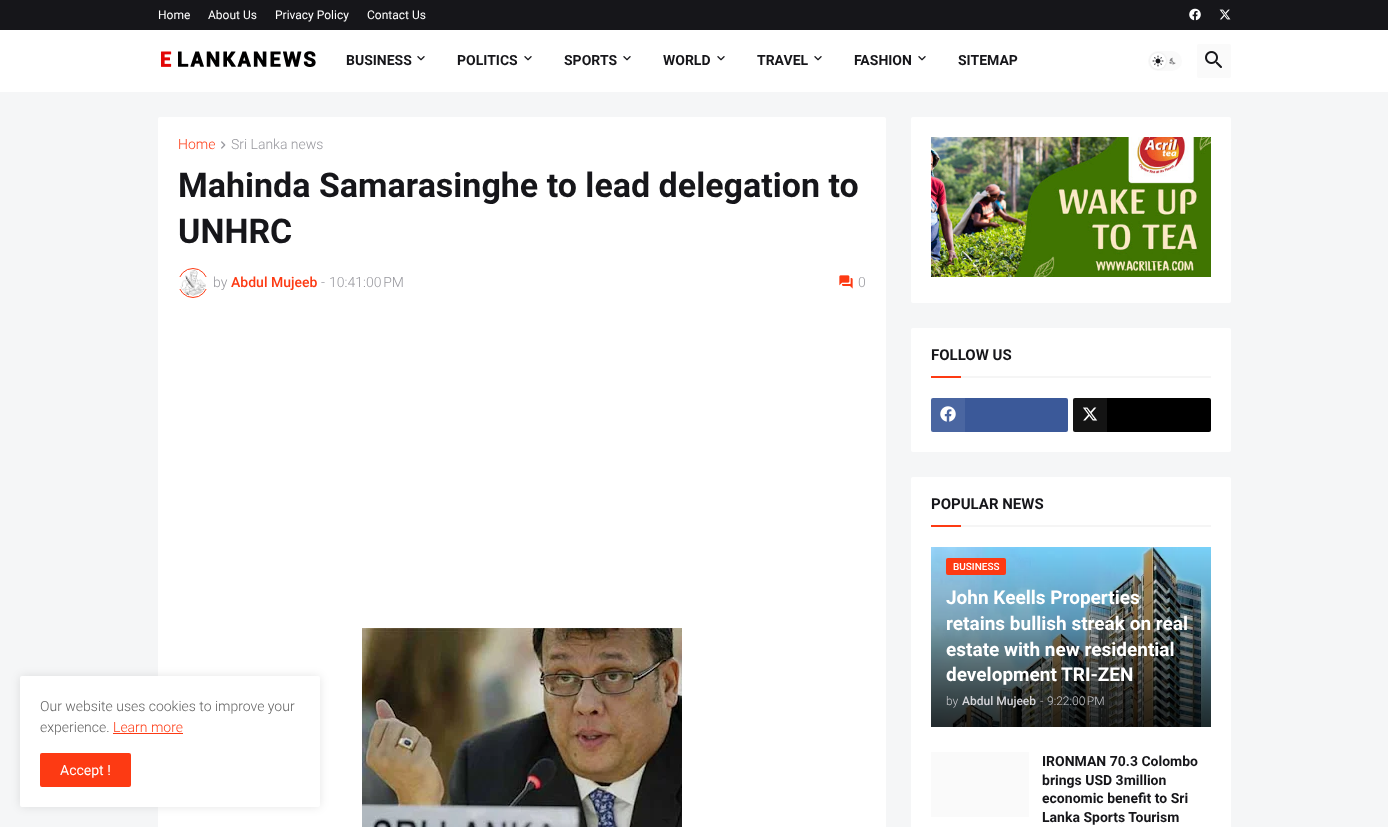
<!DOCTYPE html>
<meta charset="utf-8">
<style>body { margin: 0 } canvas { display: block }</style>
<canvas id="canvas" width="1388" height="827"></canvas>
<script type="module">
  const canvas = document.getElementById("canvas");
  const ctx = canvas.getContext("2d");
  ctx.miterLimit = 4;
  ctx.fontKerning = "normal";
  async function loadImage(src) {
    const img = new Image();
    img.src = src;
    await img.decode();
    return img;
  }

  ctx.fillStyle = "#f5f6f7";
  ctx.fillRect(0, 0, 1388, 827);
  ctx.fillStyle = "#16161a";
  ctx.fillRect(0, 0, 1388, 30);
  ctx.font = "12px Roboto";
  ctx.fillStyle = "#ffffff";
  ctx.fillText("Home", 158, 19);
  ctx.fillText("About Us", 208, 19);
  ctx.fillText("Privacy Policy", 275, 19);
  ctx.fillText("Contact Us", 367, 19);
  ctx.drawImage(await loadImage("img1.png"), 1189, 8, 12, 13);
  ctx.drawImage(await loadImage("img2.png"), 1219, 9, 12, 11);
  ctx.fillRect(0, 30, 1388, 62);
  ctx.drawImage(await loadImage("img3.png"), 161, 51, 155, 16);
  ctx.font = "bold 14px Roboto";
  ctx.fillStyle = "#16161a";
  ctx.fillText("BUSINESS", 346, 65);
  ctx.drawImage(await loadImage("img4.png"), 417, 56, 8, 5);
  ctx.fillText("POLITICS", 457, 65);
  ctx.drawImage(await loadImage("img4.png"), 524, 56, 8, 5);
  ctx.fillText("SPORTS", 564, 65);
  ctx.drawImage(await loadImage("img4.png"), 623, 56, 8, 5);
  ctx.fillText("WORLD", 663, 65);
  ctx.drawImage(await loadImage("img4.png"), 717, 56, 8, 5);
  ctx.fillText("TRAVEL", 757, 65);
  ctx.drawImage(await loadImage("img4.png"), 814, 56, 8, 5);
  ctx.fillText("FASHION", 854, 65);
  ctx.drawImage(await loadImage("img4.png"), 918, 56, 8, 5);
  ctx.fillText("SITEMAP", 958, 65);
  ctx.fillStyle = "#fafafa";
  ctx.beginPath();
  ctx.roundRect(1148, 51, 34, 20, 10);
  ctx.fill();
  ctx.drawImage(await loadImage("img6.png"), 1169, 57, 7, 8);
  ctx.fillStyle = "rgba(0, 0, 0, 0.1)";
  ctx.filter = "blur(1px)";
  ctx.beginPath();
  ctx.roundRect(1150, 53, 16, 16, 8);
  ctx.fill();
  ctx.filter = "none";
  ctx.fillStyle = "#ffffff";
  ctx.beginPath();
  ctx.arc(1158, 61, 8, 0, Math.PI * 2);
  ctx.fill();
  ctx.drawImage(await loadImage("img5.png"), 1152, 55, 12, 12);
  ctx.fillStyle = "#fafafa";
  ctx.beginPath();
  ctx.roundRect(1197, 44, 34, 34, 2);
  ctx.fill();
  ctx.drawImage(await loadImage("img7.png"), 1205, 51, 17, 17);
  ctx.fillStyle = "#ffffff";
  ctx.beginPath();
  ctx.roundRect(158, 117, 728, 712, 2);
  ctx.fill();
  ctx.fillStyle = "rgba(0, 0, 0, 0.1)";
  ctx.filter = "blur(5px)";
  ctx.beginPath();
  ctx.roundRect(20, 676, 300, 131, 2);
  ctx.fill();
  ctx.filter = "none";
  ctx.fillStyle = "#ffffff";
  ctx.beginPath();
  ctx.roundRect(20, 676, 300, 131, 2);
  ctx.fill();
  ctx.font = "300 14px Roboto";
  ctx.fillStyle = "#626262";
  ctx.fillText("Our website uses cookies to improve your", 40, 711);
  ctx.fillText("experience.", 40, 732);
  ctx.fillStyle = "#fd3a13";
  ctx.fillText("Learn more", 113, 732);
  ctx.fillRect(113, 733, 70, 1);
  ctx.beginPath();
  ctx.roundRect(40, 753, 91, 34, 2);
  ctx.fill();
  ctx.font = "14px Roboto";
  ctx.fillStyle = "#ffffff";
  ctx.fillText("Accept !", 60, 775);
  ctx.font = "300 14px Roboto";
  ctx.fillStyle = "#fd3a13";
  ctx.fillText("Home", 178, 149);
  ctx.drawImage(await loadImage("img8.png"), 221, 141, 5, 8);
  ctx.fillStyle = "#97979d";
  ctx.fillText("Sri Lanka news", 231, 149);
  ctx.font = "bold 34px Roboto";
  ctx.fillStyle = "#16161a";
  ctx.fillText("Mahinda Samarasinghe to lead delegation to", 178, 197);
  ctx.fillText("UNHRC", 178, 243);
  ctx.beginPath();
  ctx.arc(193, 283, 14.5, 0, Math.PI * 2);
  ctx.strokeStyle = "#fd3a13";
  ctx.stroke();
  ctx.fillStyle = "#ffffff";
  ctx.fillRect(178, 277, 30, 12);
  ctx.drawImage(await loadImage("img9.png"), 180, 270, 26, 26);
  ctx.font = "300 14px Roboto";
  ctx.fillStyle = "#97979d";
  ctx.fillText("by", 213, 287);
  ctx.font = "500 14px Roboto";
  ctx.fillStyle = "#fd3a13";
  ctx.fillText("Abdul Mujeeb", 231, 287);
  ctx.font = "300 14px Roboto";
  ctx.fillStyle = "#97979d";
  ctx.fillText("-", 321, 287);
  ctx.fillText("10:41:00 PM", 329, 287);
  ctx.drawImage(await loadImage("img10.png"), 839, 275, 14, 14);
  ctx.fillText("0", 858, 287);
  ctx.drawImage(await loadImage("img11.png"), 362, 628, 320, 199);
  ctx.fillStyle = "#ffffff";
  ctx.beginPath();
  ctx.roundRect(911, 117, 320, 186, 2);
  ctx.fill();
  ctx.drawImage(await loadImage("img12.png"), 931, 137, 280, 140);
  ctx.beginPath();
  ctx.roundRect(911, 328, 320, 124, 2);
  ctx.fill();
  ctx.fillStyle = "#f5f5f5";
  ctx.fillRect(961, 376, 250, 2);
  ctx.font = "bold 15px Roboto";
  ctx.fillStyle = "#16161a";
  ctx.fillText("FOLLOW US", 931, 360);
  ctx.fillStyle = "#fd3a13";
  ctx.fillRect(931, 376, 30, 2);
  ctx.fillStyle = "#3b5999";
  ctx.beginPath();
  ctx.roundRect(931, 398, 137, 34, 2);
  ctx.fill();
  ctx.fillStyle = "rgba(255, 255, 255, 0.08)";
  ctx.fillRect(931, 398, 34, 34);
  ctx.drawImage(await loadImage("img13.png"), 940, 406, 16, 16);
  ctx.fillStyle = "#000000";
  ctx.beginPath();
  ctx.roundRect(1073, 398, 138, 34, 2);
  ctx.fill();
  ctx.fillStyle = "rgba(255, 255, 255, 0.08)";
  ctx.fillRect(1073, 398, 34, 34);
  ctx.drawImage(await loadImage("img14.png"), 1083, 407, 15, 14);
  ctx.fillStyle = "#ffffff";
  ctx.beginPath();
  ctx.roundRect(911, 477, 320, 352, 2);
  ctx.fill();
  ctx.fillStyle = "#f5f5f5";
  ctx.fillRect(961, 525, 250, 2);
  ctx.fillStyle = "#16161a";
  ctx.fillText("POPULAR NEWS", 931, 509);
  ctx.fillStyle = "#fd3a13";
  ctx.fillRect(931, 525, 30, 2);
  ctx.drawImage(await loadImage("img15.png"), 931, 547, 280, 180);
  ctx.beginPath();
  ctx.roundRect(946, 558, 60, 17, 2);
  ctx.fill();
  ctx.font = "500 10px Roboto";
  ctx.fillStyle = "#ffffff";
  ctx.fillText("BUSINESS", 953, 570);
  ctx.font = "bold 19px Roboto";
  ctx.fillText("John Keells Properties", 946, 604);
  ctx.fillText("retains bullish streak on real", 946, 630);
  ctx.fillText("estate with new residential", 946, 656);
  ctx.fillText("development TRI-ZEN", 946, 681);
  ctx.font = "300 12px Roboto";
  ctx.fillStyle = "#c5c5ca";
  ctx.fillText("by", 946, 705);
  ctx.font = "500 12px Roboto";
  ctx.fillStyle = "#d5d5da";
  ctx.fillText("Abdul Mujeeb", 962, 705);
  ctx.font = "300 12px Roboto";
  ctx.fillStyle = "#c5c5ca";
  ctx.fillText("-", 1040, 705);
  ctx.fillText("9:22:00 PM", 1047, 705);
  ctx.fillStyle = "#fafafa";
  ctx.fillRect(931, 752, 98, 65);
  ctx.font = "bold 14px Roboto";
  ctx.fillStyle = "#16161a";
  ctx.fillText("IRONMAN 70.3 Colombo", 1042, 766);
  ctx.fillText("brings USD 3million", 1042, 785);
  ctx.fillText("economic benefit to Sri", 1042, 803);
  ctx.fillText("Lanka Sports Tourism", 1042, 822);
</script>
